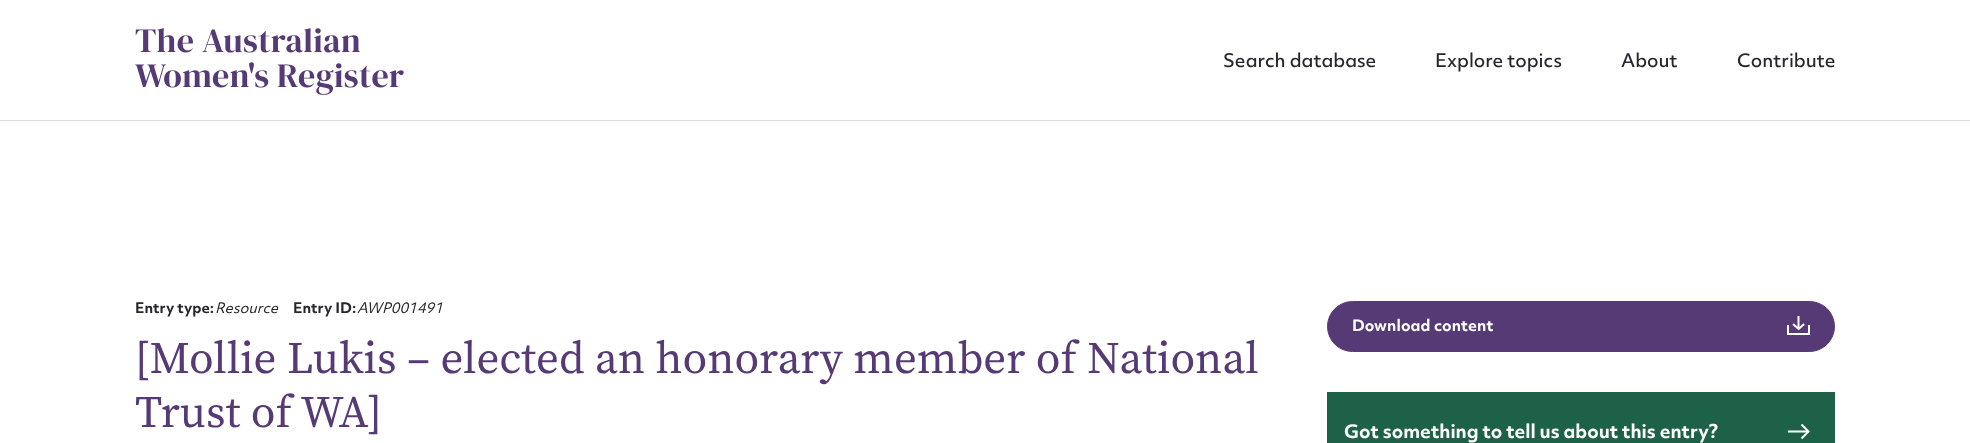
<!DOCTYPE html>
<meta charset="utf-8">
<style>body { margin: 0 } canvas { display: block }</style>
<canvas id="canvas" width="1970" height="443"></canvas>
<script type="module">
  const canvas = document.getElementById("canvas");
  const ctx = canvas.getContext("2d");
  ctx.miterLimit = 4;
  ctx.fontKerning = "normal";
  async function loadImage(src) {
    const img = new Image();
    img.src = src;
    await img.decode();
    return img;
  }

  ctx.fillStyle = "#ffffff";
  ctx.fillRect(0, 0, 1970, 443);
  ctx.fillStyle = "#ddd8e3";
  ctx.fillRect(0, 120, 1970, 1);
  ctx.letterSpacing = "0.3px";
  ctx.font = "34px DM Serif Display";
  ctx.fillStyle = "#553a75";
  ctx.fillText("The Australian", 135, 52);
  ctx.fillText("Women's Register", 135, 87);
  ctx.letterSpacing = "0px";
  ctx.font = "500 18px 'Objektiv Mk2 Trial'";
  ctx.fillStyle = "#2a242e";
  ctx.fillText("Search database", 1223, 67);
  ctx.fillText("Explore topics", 1435, 67);
  ctx.fillText("About", 1621, 67);
  ctx.fillText("Contribute", 1737, 67);
  ctx.font = "bold 14px 'Objektiv Mk2 Trial'";
  ctx.fillText("Entry type:", 135, 313);
  ctx.font = "italic 14px 'Objektiv Mk2 Trial'";
  ctx.fillText("Resource", 215, 313);
  ctx.font = "bold 14px 'Objektiv Mk2 Trial'";
  ctx.fillText("Entry ID:", 293, 313);
  ctx.font = "italic 14px 'Objektiv Mk2 Trial'";
  ctx.fillText("AWP001491", 357, 313);
  ctx.font = "45px Source Serif Pro";
  ctx.fillStyle = "#553a75";
  ctx.fillText("[Mollie Lukis – elected an honorary member of National", 135, 373);
  ctx.fillText("Trust of WA]", 135, 427);
  ctx.beginPath();
  ctx.roundRect(1327.5, 301.5, 507, 50, 25);
  ctx.fill();
  ctx.strokeStyle = "#553a75";
  ctx.stroke();
  ctx.letterSpacing = "0.1px";
  ctx.font = "bold 15px 'Objektiv Mk2 Trial'";
  ctx.fillStyle = "#ffffff";
  ctx.fillText("Download content", 1352, 331);
  ctx.drawImage(await loadImage("img1.png"), 1787, 316, 23, 19);
  ctx.fillStyle = "#1d6248";
  ctx.fillRect(1327, 392, 508, 51);
  ctx.letterSpacing = "0px";
  ctx.font = "bold 18px 'Objektiv Mk2 Trial'";
  ctx.fillStyle = "#ffffff";
  ctx.fillText("Got something to tell us about this entry?", 1344, 438);
  ctx.beginPath();
  ctx.moveTo(1801.5, 424.5);
  ctx.lineTo(1808.5, 431.5);
  ctx.lineTo(1801.5, 438.5);
  ctx.moveTo(1808.5, 431.5);
  ctx.lineTo(1788, 431.5);
  ctx.strokeStyle = "#ffffff";
  ctx.lineWidth = 1.9;
  ctx.stroke();
</script>
